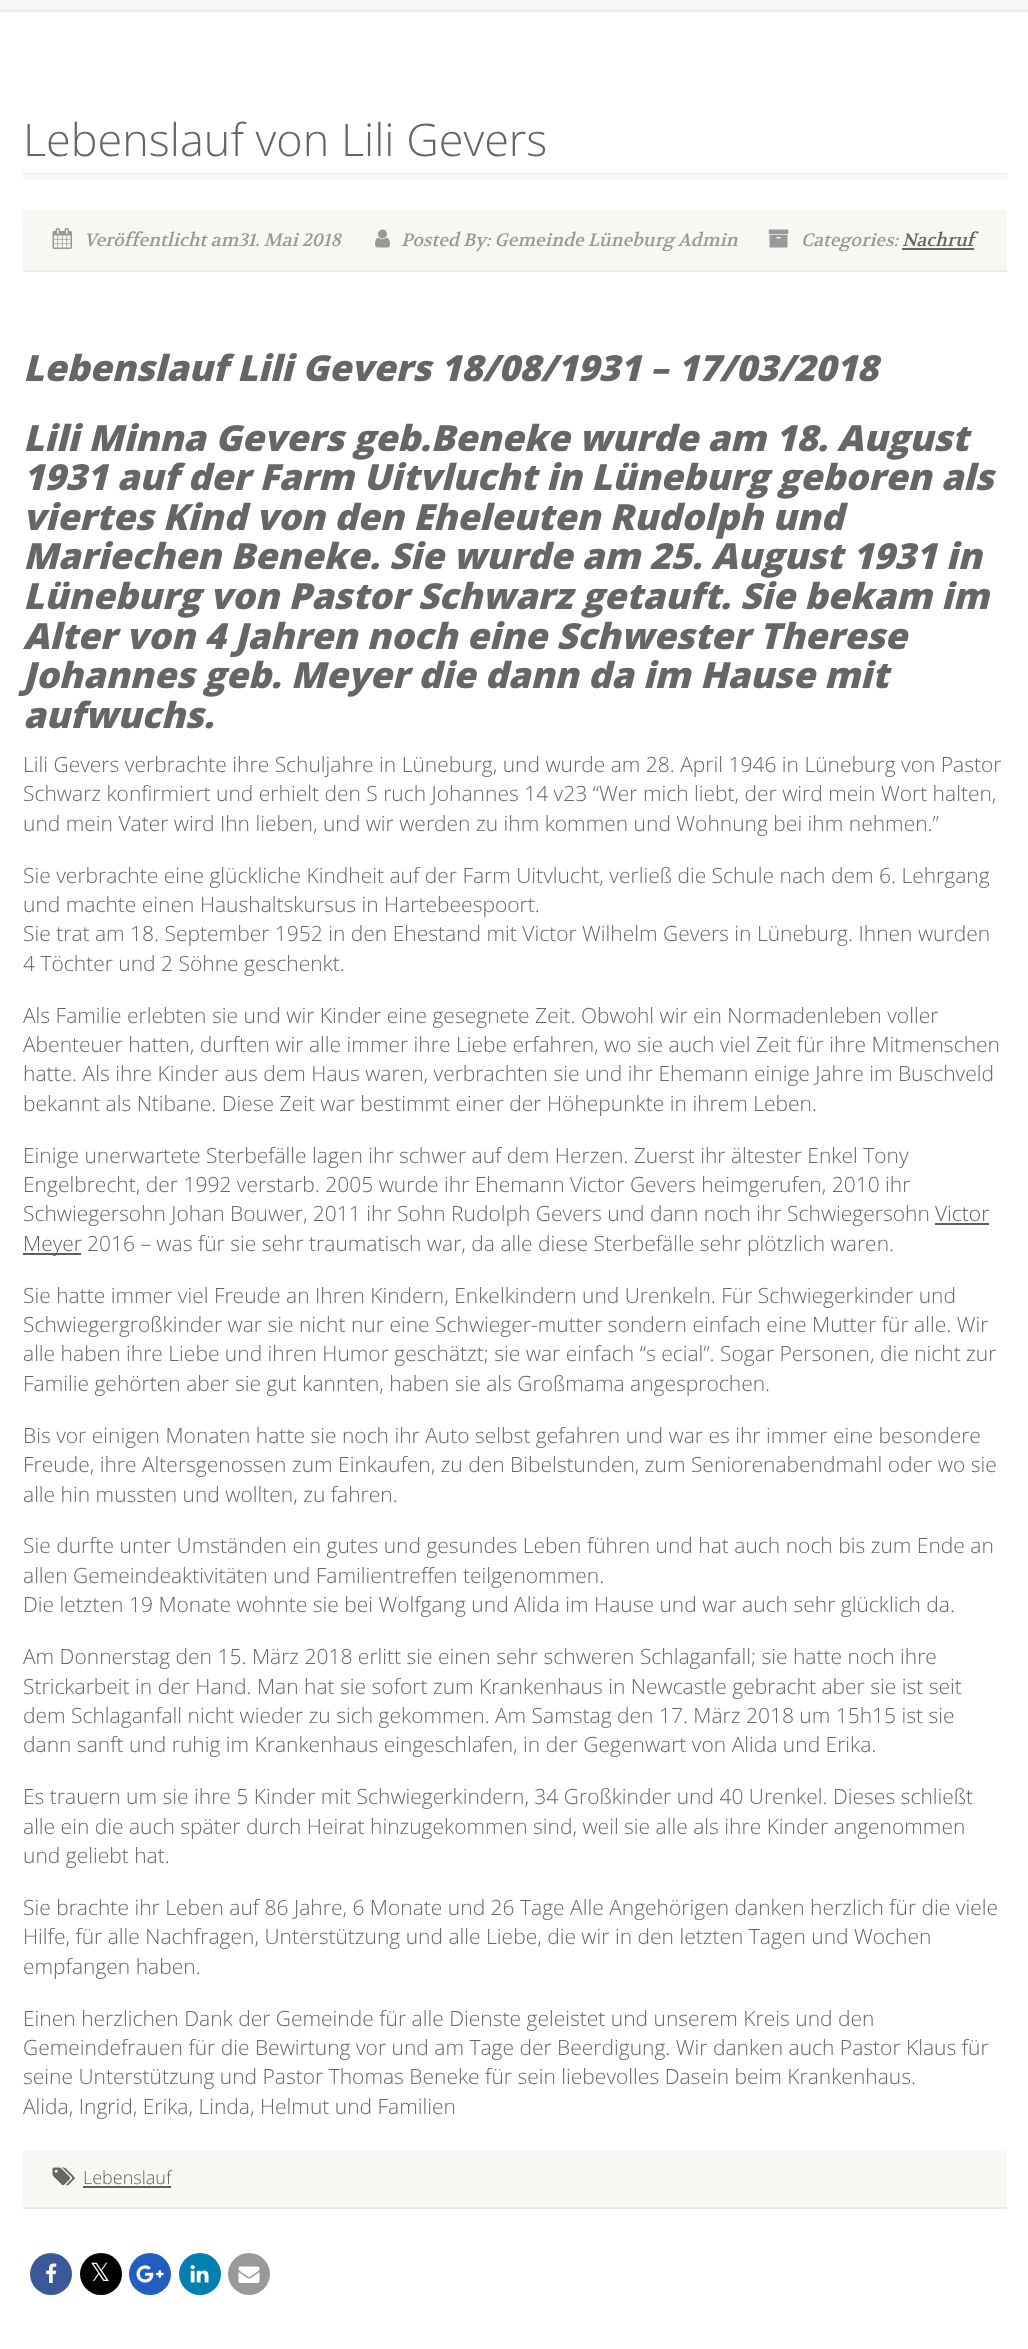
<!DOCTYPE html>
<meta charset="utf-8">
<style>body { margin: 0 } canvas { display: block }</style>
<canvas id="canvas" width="1028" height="2349"></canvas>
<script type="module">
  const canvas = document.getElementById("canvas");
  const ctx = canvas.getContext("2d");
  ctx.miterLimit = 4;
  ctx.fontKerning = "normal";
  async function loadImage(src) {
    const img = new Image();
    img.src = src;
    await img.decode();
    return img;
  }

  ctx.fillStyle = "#ffffff";
  ctx.fillRect(0, 0, 1028, 2349);
  ctx.fillStyle = "#ededed";
  ctx.fillRect(0, 9, 1028, 3);
  ctx.fillStyle = "#f8f7f3";
  ctx.fillRect(0, 0, 1028, 9);
  ctx.fillStyle = "#eceae4";
  ctx.fillRect(23, 173, 984, 1);
  ctx.font = "300 45px Open Sans";
  ctx.fillStyle = "#666666";
  ctx.fillText("Lebenslauf von Lili Gevers", 23, 156);
  ctx.fillStyle = "#f8f7f3";
  ctx.fillRect(23, 174, 984, 6);
  ctx.fillRect(23, 210, 984, 60);
  ctx.fillStyle = "#eceae4";
  ctx.fillRect(23, 270, 984, 2);
  ctx.drawImage(await loadImage("img1.png"), 52, 228, 20, 21);
  ctx.font = "italic 18px Volkhov";
  ctx.fillStyle = "#999999";
  ctx.fillText("Veröffentlicht am31. Mai 2018", 84, 246);
  ctx.drawImage(await loadImage("img2.png"), 375, 229, 15, 19);
  ctx.fillText("Posted By: Gemeinde Lüneburg Admin", 401, 246);
  ctx.drawImage(await loadImage("img3.png"), 768, 229, 21, 19);
  ctx.fillText("Categories:", 801, 246);
  ctx.fillStyle = "#666666";
  ctx.fillText("Nachruf", 902, 246);
  ctx.fillRect(902, 248, 72, 2);
  ctx.font = "italic 800 36px Open Sans";
  ctx.fillText("Lebenslauf Lili Gevers 18/08/1931 – 17/03/2018", 23, 381);
  ctx.fillText("Lili Minna Gevers geb.Beneke wurde am 18. August", 23, 451);
  ctx.fillText("1931 auf der Farm Uitvlucht in Lüneburg geboren als", 23, 490);
  ctx.fillText("viertes Kind von den Eheleuten Rudolph und", 23, 530);
  ctx.fillText("Mariechen Beneke. Sie wurde am 25. August 1931 in", 23, 569);
  ctx.fillText("Lüneburg von Pastor Schwarz getauft. Sie bekam im", 23, 609);
  ctx.fillText("Alter von 4 Jahren noch eine Schwester Therese", 23, 649);
  ctx.fillText("Johannes geb. Meyer die dann da im Hause mit", 23, 688);
  ctx.fillText("aufwuchs.", 23, 728);
  ctx.font = "300 21px Open Sans";
  ctx.fillText("Lili Gevers verbrachte ihre Schuljahre in Lüneburg, und wurde am 28. April 1946 in Lüneburg von Pastor", 23, 772);
  ctx.fillText("Schwarz konfirmiert und erhielt den S ruch Johannes 14 v23 “Wer mich liebt, der wird mein Wort halten,", 23, 801);
  ctx.fillText("und mein Vater wird Ihn lieben, und wir werden zu ihm kommen und Wohnung bei ihm nehmen.”", 23, 831);
  ctx.fillText("Sie verbrachte eine glückliche Kindheit auf der Farm Uitvlucht, verließ die Schule nach dem 6. Lehrgang", 23, 883);
  ctx.fillText("und machte einen Haushaltskursus in Hartebeespoort.", 23, 912);
  ctx.fillText("Sie trat am 18. September 1952 in den Ehestand mit Victor Wilhelm Gevers in Lüneburg. Ihnen wurden", 23, 941);
  ctx.fillText("4 Töchter und 2 Söhne geschenkt.", 23, 971);
  ctx.fillText("Als Familie erlebten sie und wir Kinder eine gesegnete Zeit. Obwohl wir ein Normadenleben voller", 23, 1023);
  ctx.fillText("Abenteuer hatten, durften wir alle immer ihre Liebe erfahren, wo sie auch viel Zeit für ihre Mitmenschen", 23, 1052);
  ctx.fillText("hatte. Als ihre Kinder aus dem Haus waren, verbrachten sie und ihr Ehemann einige Jahre im Buschveld", 23, 1081);
  ctx.fillText("bekannt als Ntibane. Diese Zeit war bestimmt einer der Höhepunkte in ihrem Leben.", 23, 1111);
  ctx.fillText("Einige unerwartete Sterbefälle lagen ihr schwer auf dem Herzen. Zuerst ihr ältester Enkel Tony", 23, 1163);
  ctx.fillText("Engelbrecht, der 1992 verstarb. 2005 wurde ihr Ehemann Victor Gevers heimgerufen, 2010 ihr", 23, 1192);
  ctx.fillText("Schwiegersohn Johan Bouwer, 2011 ihr Sohn Rudolph Gevers und dann noch ihr Schwiegersohn", 23, 1221);
  ctx.fillStyle = "#5e5e5e";
  ctx.fillText("Victor", 935, 1221);
  ctx.fillRect(935, 1223, 54, 2);
  ctx.fillRect(23, 1253, 58, 2);
  ctx.fillText("Meyer", 23, 1251);
  ctx.fillStyle = "#666666";
  ctx.fillText("2016 – was für sie sehr traumatisch war, da alle diese Sterbefälle sehr plötzlich waren.", 87, 1251);
  ctx.fillText("Sie hatte immer viel Freude an Ihren Kindern, Enkelkindern und Urenkeln. Für Schwiegerkinder und", 23, 1303);
  ctx.fillText("Schwiegergroßkinder war sie nicht nur eine Schwieger-mutter sondern einfach eine Mutter für alle. Wir", 23, 1332);
  ctx.fillText("alle haben ihre Liebe und ihren Humor geschätzt; sie war einfach “s ecial”. Sogar Personen, die nicht zur", 23, 1361);
  ctx.fillText("Familie gehörten aber sie gut kannten, haben sie als Großmama angesprochen.", 23, 1391);
  ctx.fillText("Bis vor einigen Monaten hatte sie noch ihr Auto selbst gefahren und war es ihr immer eine besondere", 23, 1443);
  ctx.fillText("Freude, ihre Altersgenossen zum Einkaufen, zu den Bibelstunden, zum Seniorenabendmahl oder wo sie", 23, 1472);
  ctx.fillText("alle hin mussten und wollten, zu fahren.", 23, 1502);
  ctx.fillText("Sie durfte unter Umständen ein gutes und gesundes Leben führen und hat auch noch bis zum Ende an", 23, 1553);
  ctx.fillText("allen Gemeindeaktivitäten und Familientreffen teilgenommen.", 23, 1583);
  ctx.fillText("Die letzten 19 Monate wohnte sie bei Wolfgang und Alida im Hause und war auch sehr glücklich da.", 23, 1612);
  ctx.fillText("Am Donnerstag den 15. März 2018 erlitt sie einen sehr schweren Schlaganfall; sie hatte noch ihre", 23, 1664);
  ctx.fillText("Strickarbeit in der Hand. Man hat sie sofort zum Krankenhaus in Newcastle gebracht aber sie ist seit", 23, 1694);
  ctx.fillText("dem Schlaganfall nicht wieder zu sich gekommen. Am Samstag den 17. März 2018 um 15h15 ist sie", 23, 1723);
  ctx.fillText("dann sanft und ruhig im Krankenhaus eingeschlafen, in der Gegenwart von Alida und Erika.", 23, 1752);
  ctx.fillText("Es trauern um sie ihre 5 Kinder mit Schwiegerkindern, 34 Großkinder und 40 Urenkel. Dieses schließt", 23, 1804);
  ctx.fillText("alle ein die auch später durch Heirat hinzugekommen sind, weil sie alle als ihre Kinder angenommen", 23, 1834);
  ctx.fillText("und geliebt hat.", 23, 1863);
  ctx.fillText("Sie brachte ihr Leben auf 86 Jahre, 6 Monate und 26 Tage Alle Angehörigen danken herzlich für die viele", 23, 1915);
  ctx.fillText("Hilfe, für alle Nachfragen, Unterstützung und alle Liebe, die wir in den letzten Tagen und Wochen", 23, 1944);
  ctx.fillText("empfangen haben.", 23, 1974);
  ctx.fillText("Einen herzlichen Dank der Gemeinde für alle Dienste geleistet und unserem Kreis und den", 23, 2026);
  ctx.fillText("Gemeindefrauen für die Bewirtung vor und am Tage der Beerdigung. Wir danken auch Pastor Klaus für", 23, 2055);
  ctx.fillText("seine Unterstützung und Pastor Thomas Beneke für sein liebevolles Dasein beim Krankenhaus.", 23, 2084);
  ctx.fillText("Alida, Ingrid, Erika, Linda, Helmut und Familien", 23, 2114);
  ctx.fillStyle = "#f8f7f3";
  ctx.fillRect(23, 2151, 984, 56);
  ctx.fillStyle = "#eceae4";
  ctx.fillRect(23, 2207, 984, 2);
  ctx.drawImage(await loadImage("img4.png"), 52, 2167, 23, 19);
  ctx.font = "300 18px Open Sans";
  ctx.fillStyle = "#5e5e5e";
  ctx.fillText("Lebenslauf", 83, 2184);
  ctx.fillRect(83, 2186, 88, 2);
  ctx.fillStyle = "#3b5998";
  ctx.beginPath();
  ctx.arc(51, 2274, 21, 0, Math.PI * 2);
  ctx.fill();
  ctx.drawImage(await loadImage("img5.png"), 46, 2263, 11, 20);
  ctx.fillStyle = "#000000";
  ctx.beginPath();
  ctx.arc(101, 2274, 21, 0, Math.PI * 2);
  ctx.fill();
  ctx.font = "25px DejaVu Sans";
  ctx.fillStyle = "#ffffff";
  ctx.fillText("𝕏", 90, 2281);
  ctx.fillStyle = "#245dc1";
  ctx.beginPath();
  ctx.arc(150, 2274, 21, 0, Math.PI * 2);
  ctx.fill();
  ctx.drawImage(await loadImage("img6.png"), 136, 2265, 28, 18);
  ctx.fillStyle = "#007fb1";
  ctx.beginPath();
  ctx.arc(200, 2274, 21, 0, Math.PI * 2);
  ctx.fill();
  ctx.drawImage(await loadImage("img7.png"), 190, 2265, 19, 18);
  ctx.fillStyle = "#999999";
  ctx.beginPath();
  ctx.arc(249, 2274, 21, 0, Math.PI * 2);
  ctx.fill();
  ctx.drawImage(await loadImage("img8.png"), 238, 2266, 22, 17);
</script>
